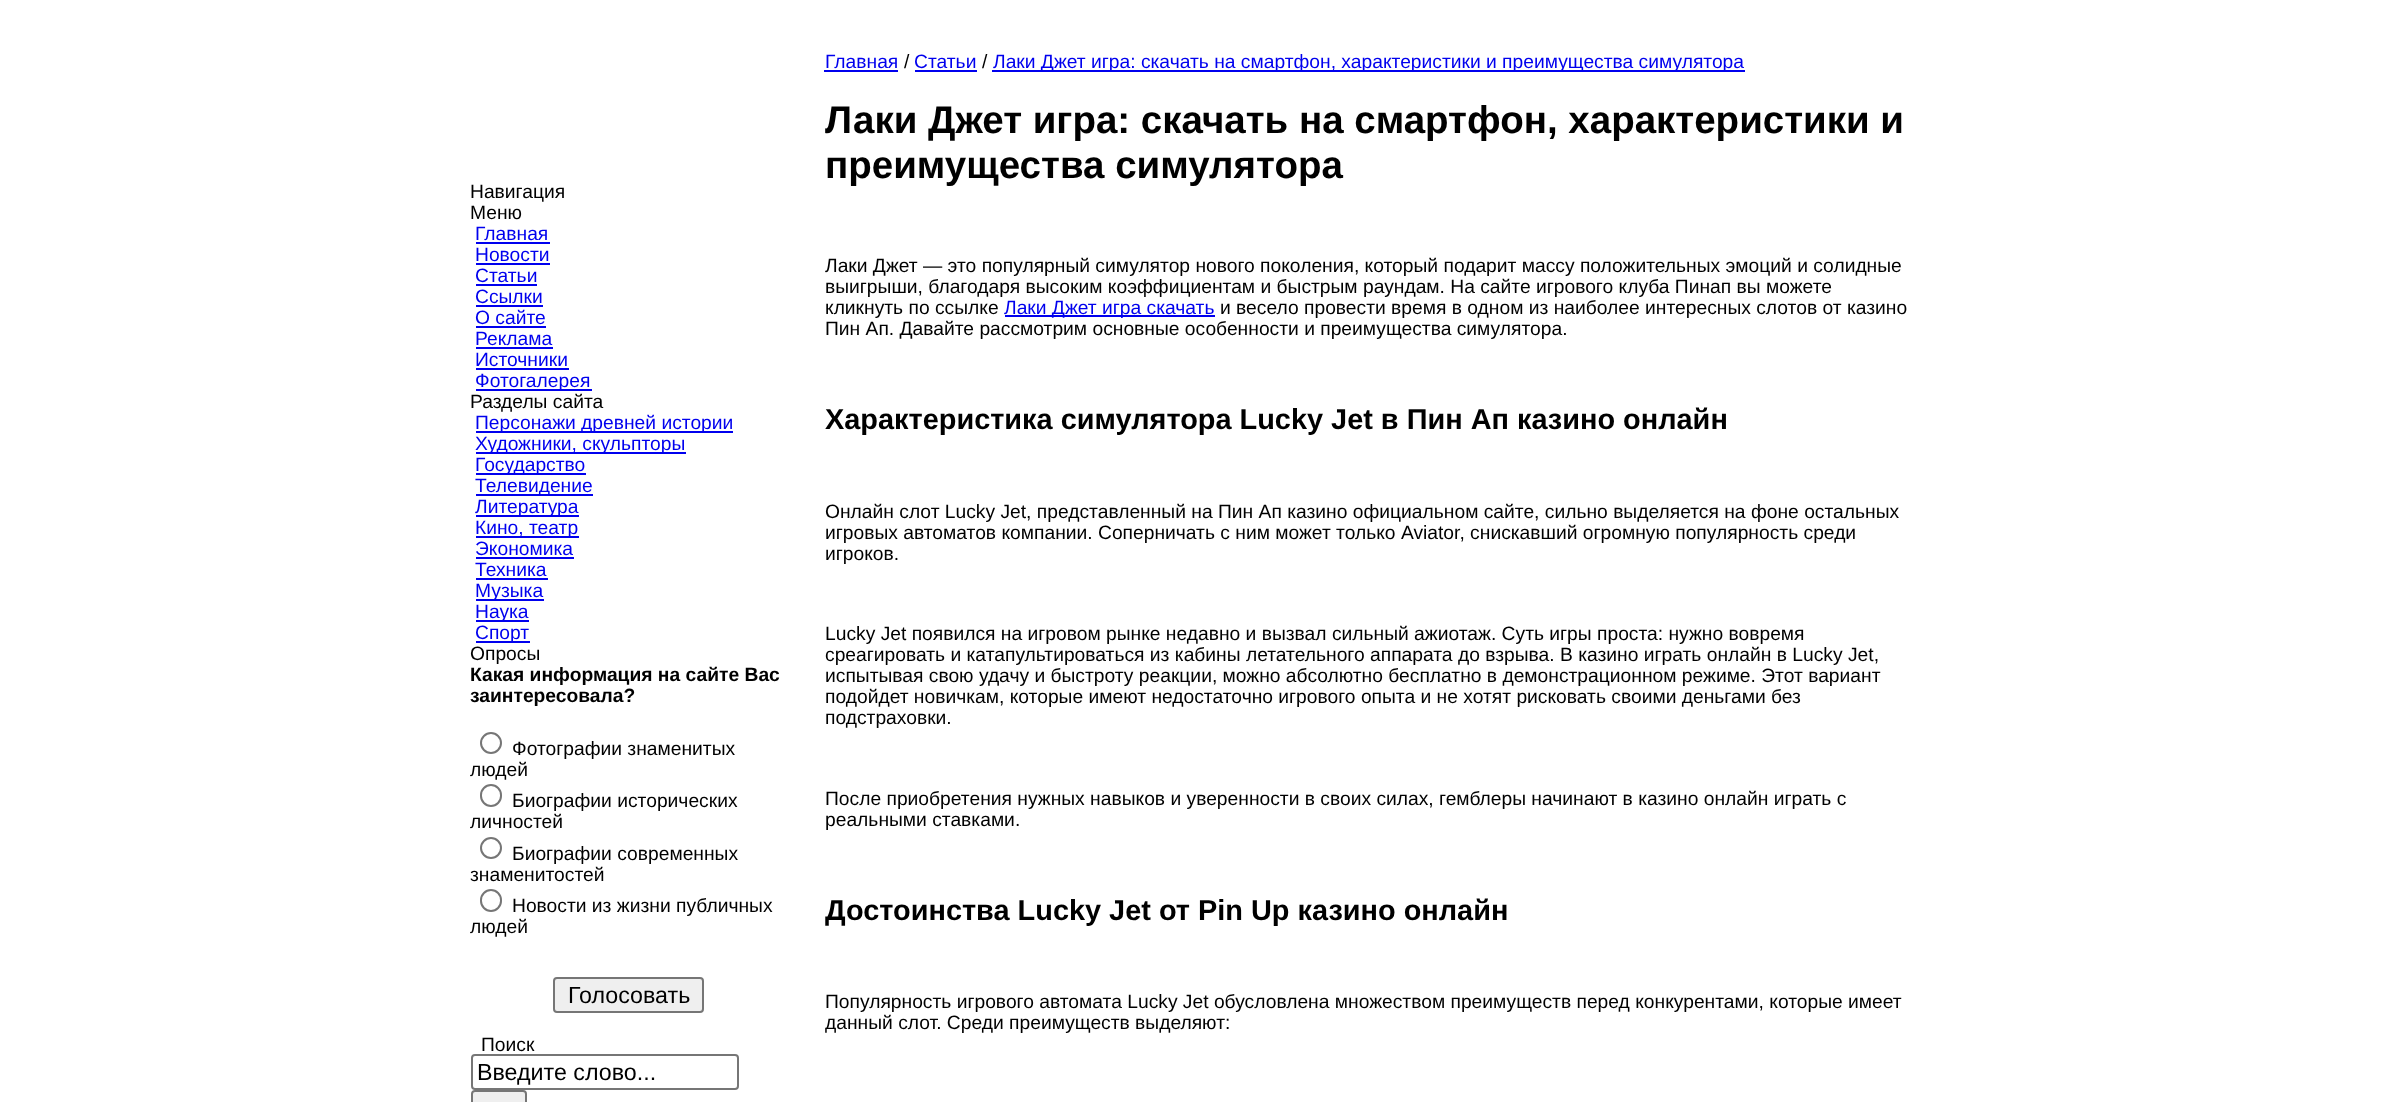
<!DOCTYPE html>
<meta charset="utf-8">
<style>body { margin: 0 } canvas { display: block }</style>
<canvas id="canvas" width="2382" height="1102"></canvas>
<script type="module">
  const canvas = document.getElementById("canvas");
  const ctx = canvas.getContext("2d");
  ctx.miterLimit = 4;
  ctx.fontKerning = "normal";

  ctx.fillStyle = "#ffffff";
  ctx.fillRect(0, 0, 2382, 1102);
  ctx.font = "19.25px Liberation Sans";
  ctx.fillStyle = "#000000";
  ctx.fillText("Навигация", 470, 198);
  ctx.fillText("Меню", 470, 219);
  ctx.fillStyle = "#0000ee";
  ctx.fillText("Главная", 475, 240);
  ctx.fillRect(476, 242, 74, 2);
  ctx.fillText("Новости", 475, 261);
  ctx.fillRect(476, 263, 74, 2);
  ctx.fillText("Статьи", 475, 282);
  ctx.fillRect(476, 284, 61, 2);
  ctx.fillText("Ссылки", 475, 303);
  ctx.fillRect(476, 305, 67, 2);
  ctx.fillText("О сайте", 475, 324);
  ctx.fillRect(476, 326, 70, 2);
  ctx.fillText("Реклама", 475, 345);
  ctx.fillRect(476, 347, 77, 2);
  ctx.fillText("Источники", 475, 366);
  ctx.fillRect(476, 368, 93, 2);
  ctx.fillRect(476, 389, 116, 2);
  ctx.fillText("Фотогалерея", 475, 387);
  ctx.fillStyle = "#000000";
  ctx.fillText("Разделы сайта", 470, 408);
  ctx.fillStyle = "#0000ee";
  ctx.fillRect(476, 431, 257, 2);
  ctx.fillText("Персонажи древней истории", 475, 429);
  ctx.fillRect(476, 452, 210, 2);
  ctx.fillText("Художники, скульпторы", 475, 450);
  ctx.fillRect(476, 473, 110, 2);
  ctx.fillText("Государство", 475, 471);
  ctx.fillRect(476, 494, 117, 2);
  ctx.fillText("Телевидение", 475, 492);
  ctx.fillRect(476, 515, 103, 2);
  ctx.fillText("Литература", 475, 513);
  ctx.fillRect(476, 536, 103, 2);
  ctx.fillText("Кино, театр", 475, 534);
  ctx.fillText("Экономика", 475, 555);
  ctx.fillRect(476, 557, 98, 2);
  ctx.fillText("Техника", 475, 576);
  ctx.fillRect(476, 578, 72, 2);
  ctx.fillRect(476, 599, 68, 2);
  ctx.fillText("Музыка", 475, 597);
  ctx.fillRect(476, 620, 53, 2);
  ctx.fillText("Наука", 475, 618);
  ctx.fillRect(476, 641, 54, 2);
  ctx.fillText("Спорт", 475, 639);
  ctx.fillStyle = "#000000";
  ctx.fillText("Опросы", 470, 660);
  ctx.font = "bold 19.25px Liberation Sans";
  ctx.fillText("Какая информация на сайте Вас", 470, 681);
  ctx.fillText("заинтересовала?", 470, 702);
  ctx.beginPath();
  ctx.arc(491, 743, 10, 0, Math.PI * 2);
  ctx.strokeStyle = "#767676";
  ctx.lineWidth = 2;
  ctx.stroke();
  ctx.font = "19.25px Liberation Sans";
  ctx.fillText("Фотографии знаменитых", 512, 755);
  ctx.fillText("людей", 470, 776);
  ctx.beginPath();
  ctx.roundRect(481, 785, 20, 21, 10);
  ctx.stroke();
  ctx.fillText("Биографии исторических", 512, 807);
  ctx.fillText("личностей", 470, 828);
  ctx.beginPath();
  ctx.arc(491, 848, 10, 0, Math.PI * 2);
  ctx.stroke();
  ctx.fillText("Биографии современных", 512, 860);
  ctx.fillText("знаменитостей", 470, 881);
  ctx.beginPath();
  ctx.roundRect(481, 890, 20, 21, 10);
  ctx.stroke();
  ctx.fillText("Новости из жизни публичных", 512, 912);
  ctx.fillText("людей", 470, 933);
  ctx.fillStyle = "#efefef";
  ctx.beginPath();
  ctx.roundRect(554, 978, 149, 34, 3);
  ctx.fill();
  ctx.stroke();
  ctx.font = "23.25px Liberation Sans";
  ctx.fillStyle = "#000000";
  ctx.fillText("Голосовать", 568, 1003);
  ctx.font = "19.25px Liberation Sans";
  ctx.fillText("Поиск", 481, 1051);
  ctx.beginPath();
  ctx.roundRect(472, 1055, 266, 34, 3);
  ctx.stroke();
  ctx.font = "23.25px Liberation Sans";
  ctx.fillText("Введите слово...", 477, 1080);
  ctx.fillStyle = "#efefef";
  ctx.beginPath();
  ctx.roundRect(472, 1091, 54, 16, 3);
  ctx.fill();
  ctx.stroke();
  ctx.font = "19.25px Liberation Sans";
  ctx.fillStyle = "#0000ee";
  ctx.fillText("Главная", 825, 68);
  ctx.fillRect(824, 70, 74, 2);
  ctx.fillStyle = "#000000";
  ctx.fillText("/", 904, 68);
  ctx.fillStyle = "#0000ee";
  ctx.fillText("Статьи", 914, 68);
  ctx.fillRect(915, 70, 62, 2);
  ctx.fillStyle = "#000000";
  ctx.fillText("/", 982, 68);
  ctx.fillStyle = "#0000ee";
  ctx.fillRect(992, 70, 753, 2);
  ctx.fillText("Лаки Джет игра: скачать на смартфон, характеристики и преимущества симулятора", 993, 68);
  ctx.font = "bold 38.5px Liberation Sans";
  ctx.fillStyle = "#000000";
  ctx.fillText("Лаки Джет игра: скачать на смартфон, характеристики и", 825, 133);
  ctx.fillText("преимущества симулятора", 825, 178);
  ctx.font = "19.25px Liberation Sans";
  ctx.fillText("Лаки Джет — это популярный симулятор нового поколения, который подарит массу положительных эмоций и солидные", 825, 272);
  ctx.fillText("выигрыши, благодаря высоким коэффициентам и быстрым раундам. На сайте игрового клуба Пинап вы можете", 825, 293);
  ctx.fillText("кликнуть по ссылке", 825, 314);
  ctx.fillStyle = "#0000ee";
  ctx.fillRect(1005, 315, 210, 2);
  ctx.fillText("Лаки Джет игра скачать", 1004, 314);
  ctx.fillStyle = "#000000";
  ctx.fillText("и весело провести время в одном из наиболее интересных слотов от казино", 1220, 314);
  ctx.fillText("Пин Ап. Давайте рассмотрим основные особенности и преимущества симулятора.", 825, 335);
  ctx.font = "bold 28.9px Liberation Sans";
  ctx.fillText("Характеристика симулятора Lucky Jet в Пин Ап казино онлайн", 825, 429);
  ctx.font = "19.25px Liberation Sans";
  ctx.fillText("Онлайн слот Lucky Jet, представленный на Пин Ап казино официальном сайте, сильно выделяется на фоне остальных", 825, 518);
  ctx.fillText("игровых автоматов компании. Соперничать с ним может только Aviator, снискавший огромную популярность среди", 825, 539);
  ctx.fillText("игроков.", 825, 560);
  ctx.fillText("Lucky Jet появился на игровом рынке недавно и вызвал сильный ажиотаж. Суть игры проста: нужно вовремя", 825, 640);
  ctx.fillText("среагировать и катапультироваться из кабины летательного аппарата до взрыва. В казино играть онлайн в Lucky Jet,", 825, 661);
  ctx.fillText("испытывая свою удачу и быстроту реакции, можно абсолютно бесплатно в демонстрационном режиме. Этот вариант", 825, 682);
  ctx.fillText("подойдет новичкам, которые имеют недостаточно игрового опыта и не хотят рисковать своими деньгами без", 825, 703);
  ctx.fillText("подстраховки.", 825, 724);
  ctx.fillText("После приобретения нужных навыков и уверенности в своих силах, гемблеры начинают в казино онлайн играть с", 825, 805);
  ctx.fillText("реальными ставками.", 825, 826);
  ctx.font = "bold 28.9px Liberation Sans";
  ctx.fillText("Достоинства Lucky Jet от Pin Up казино онлайн", 825, 920);
  ctx.font = "19.25px Liberation Sans";
  ctx.fillText("Популярность игрового автомата Lucky Jet обусловлена множеством преимуществ перед конкурентами, которые имеет", 825, 1008);
  ctx.fillText("данный слот. Среди преимуществ выделяют:", 825, 1029);
</script>
